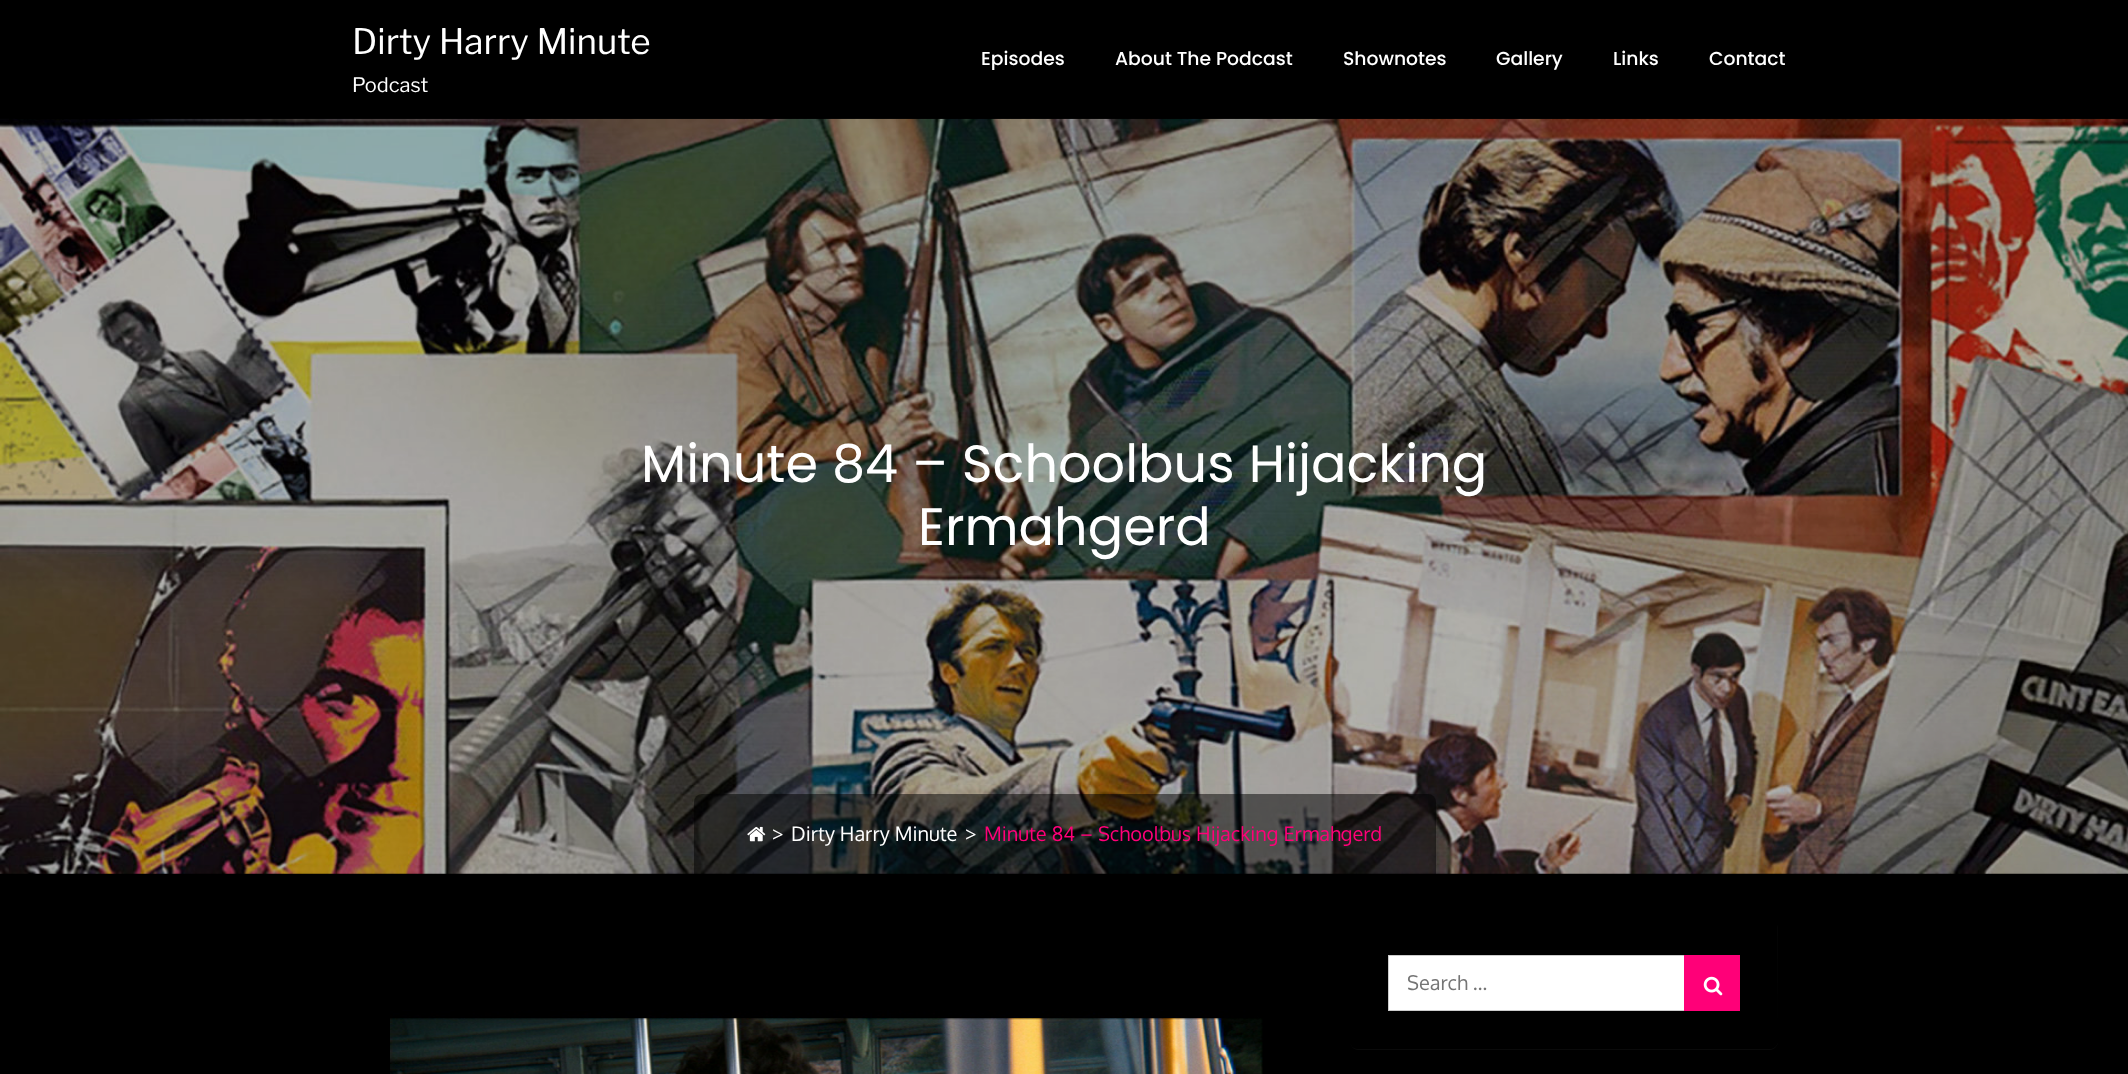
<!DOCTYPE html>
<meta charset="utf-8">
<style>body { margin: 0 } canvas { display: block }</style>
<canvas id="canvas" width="2128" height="1074"></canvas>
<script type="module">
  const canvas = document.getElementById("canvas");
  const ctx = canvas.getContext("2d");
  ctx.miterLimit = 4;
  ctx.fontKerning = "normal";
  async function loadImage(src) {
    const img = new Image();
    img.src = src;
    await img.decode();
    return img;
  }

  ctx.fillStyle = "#000000";
  ctx.fillRect(0, 0, 2128, 1074);
  ctx.drawImage(await loadImage("img1.png"), 0, 118, 2128, 756);
  ctx.fillStyle = "rgba(0, 0, 0, 0.8)";
  ctx.fillRect(15, 118, 2113, 1);
  ctx.font = "35px Libre Franklin";
  ctx.fillStyle = "#ffffff";
  ctx.fillText("Dirty Harry Minute", 352, 54);
  ctx.font = "20px Libre Franklin";
  ctx.fillText("Podcast", 352, 92);
  ctx.font = "500 18.75px Poppins";
  ctx.fillText("Episodes", 981, 65);
  ctx.fillText("About The Podcast", 1115, 65);
  ctx.fillText("Shownotes", 1343, 65);
  ctx.fillText("Gallery", 1496, 65);
  ctx.fillText("Links", 1613, 65);
  ctx.fillText("Contact", 1709, 65);
  ctx.font = "52.5px Poppins";
  ctx.fillText("Minute 84 – Schoolbus Hijacking", 641, 482);
  ctx.fillText("Ermahgerd", 918, 545);
  ctx.fillStyle = "rgba(0, 0, 0, 0.5)";
  ctx.beginPath();
  ctx.roundRect(694, 794, 742, 80, [8, 8, 0, 0]);
  ctx.fill();
  ctx.drawImage(await loadImage("img2.png"), 747, 826, 19, 16);
  ctx.font = "20px Oxygen";
  ctx.fillStyle = "#ffffff";
  ctx.fillText(">", 772, 841);
  ctx.fillText("Dirty Harry Minute", 791, 841);
  ctx.fillText(">", 965, 841);
  ctx.fillStyle = "#ff0078";
  ctx.fillText("Minute 84 – Schoolbus Hijacking Ermahgerd", 984, 841);
  ctx.fillStyle = "#0a0a0a";
  ctx.beginPath();
  ctx.moveTo(1350, 1041);
  ctx.lineTo(1350, 1042);
  ctx.bezierCurveTo(1350, 1046, 1354, 1050, 1358, 1050);
  ctx.lineTo(1770, 1050);
  ctx.bezierCurveTo(1774, 1050, 1778, 1046, 1778, 1042);
  ctx.lineTo(1778, 927);
  ctx.lineTo(1777, 924);
  ctx.lineTo(1778, 1041);
  ctx.bezierCurveTo(1778, 1045, 1774, 1049, 1770, 1049);
  ctx.lineTo(1358, 1049);
  ctx.bezierCurveTo(1353, 1049, 1350, 1045, 1350, 1041);
  ctx.closePath();
  ctx.fill();
  ctx.fillStyle = "rgba(0, 0, 0, 0.4)";
  ctx.beginPath();
  ctx.roundRect(1350, 918, 428, 131, 8);
  ctx.fill();
  ctx.fillStyle = "#ffffff";
  ctx.fillRect(1389, 956, 295, 54);
  ctx.strokeStyle = "#cccccc";
  ctx.strokeRect(1388.5, 955.5, 351, 55);
  ctx.fillStyle = "#757575";
  ctx.fillText("Search …", 1407, 990);
  ctx.fillStyle = "#ff0078";
  ctx.fillRect(1684, 955, 56, 56);
  ctx.drawImage(await loadImage("img3.png"), 1703, 976, 20, 20);
  ctx.drawImage(await loadImage("img4.png"), 390, 1010, 873, 64);
</script>
